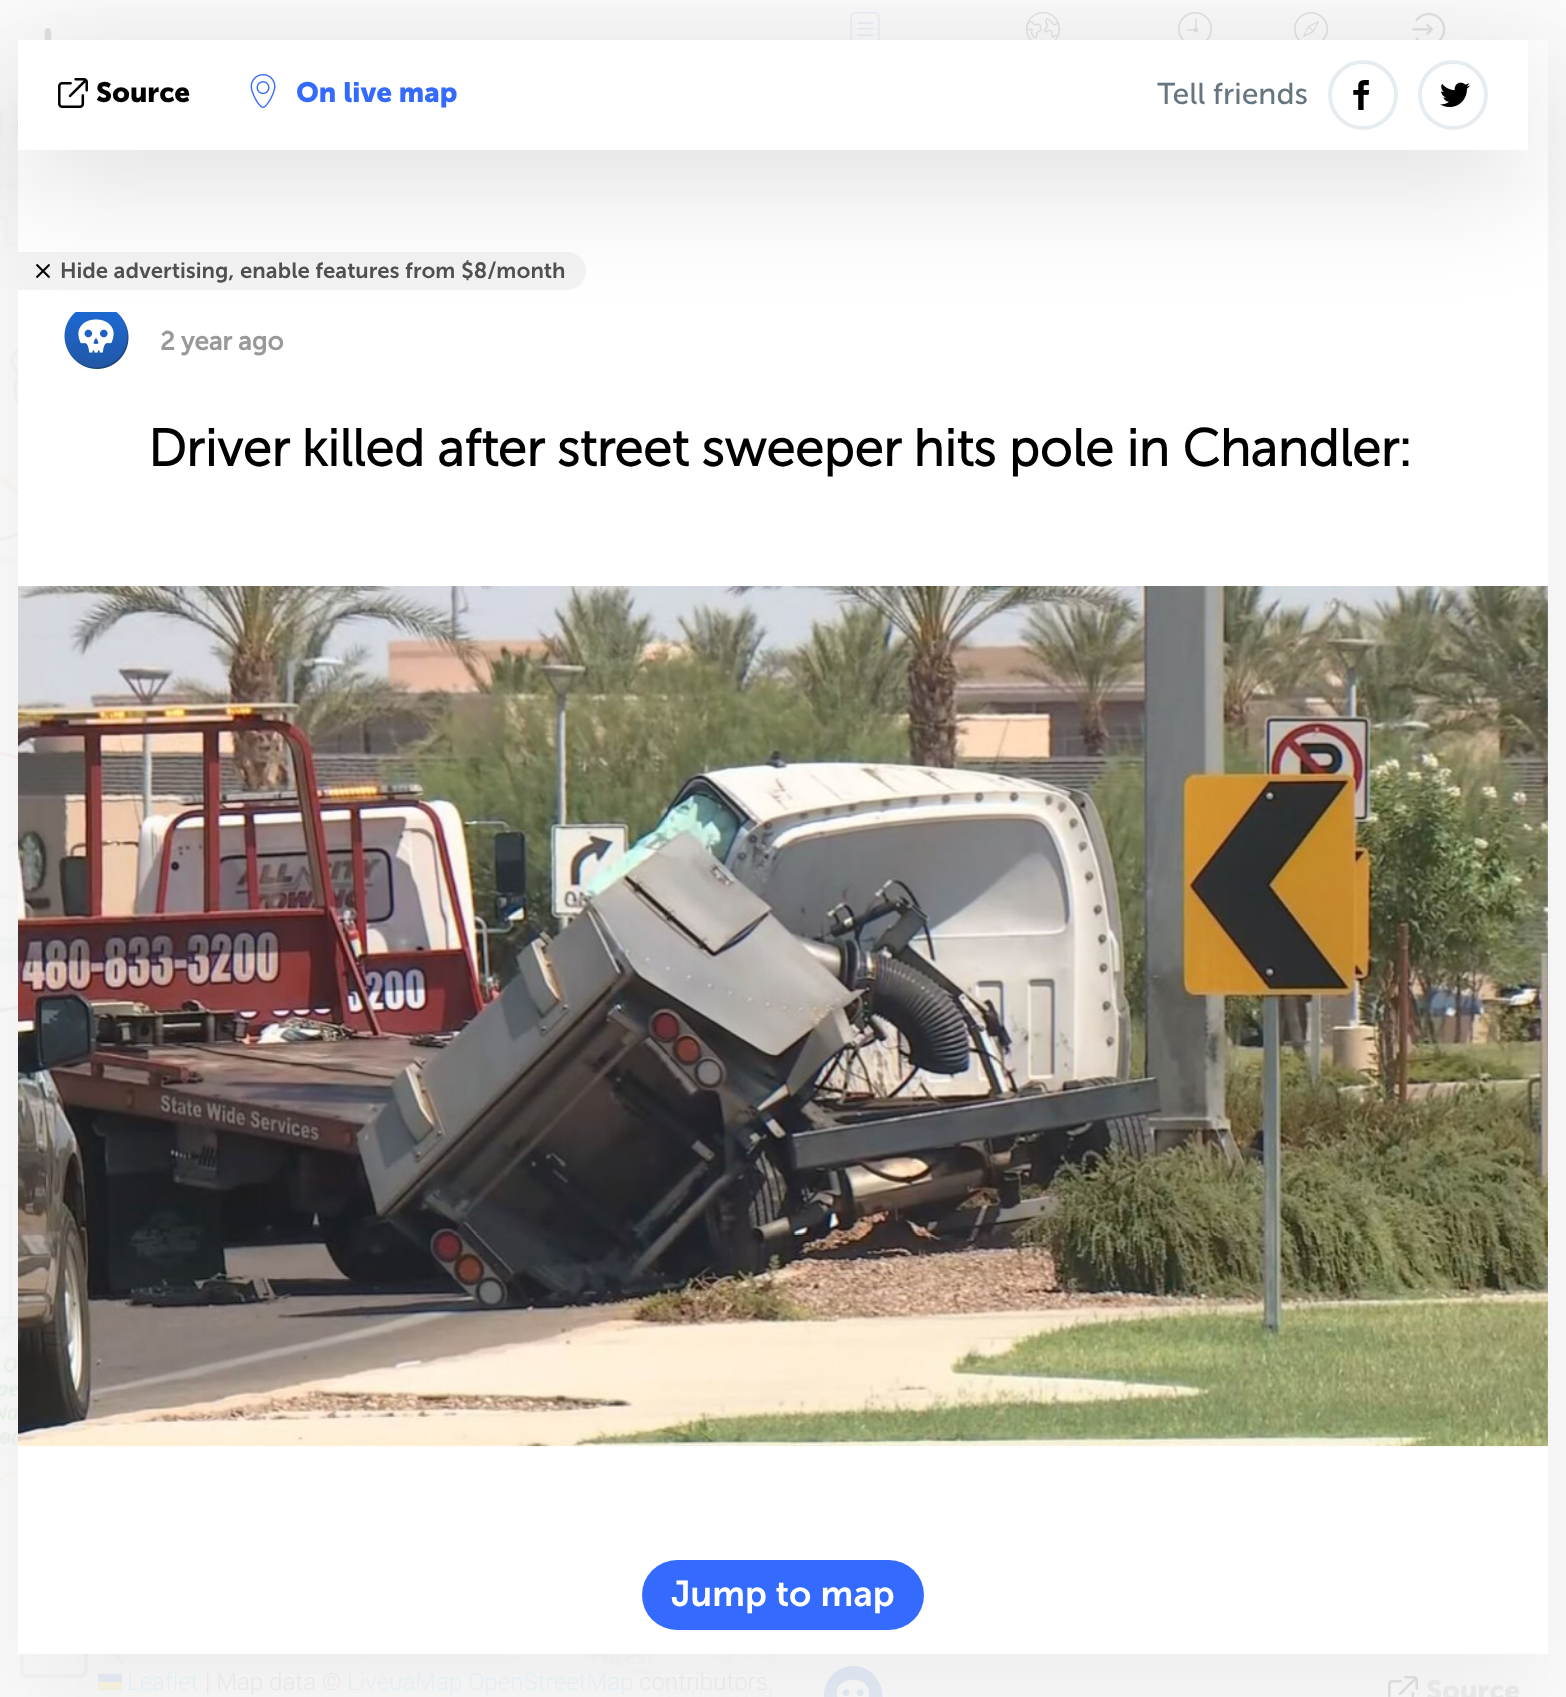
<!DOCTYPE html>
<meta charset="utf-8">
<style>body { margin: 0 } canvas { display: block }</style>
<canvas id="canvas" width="1566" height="1697"></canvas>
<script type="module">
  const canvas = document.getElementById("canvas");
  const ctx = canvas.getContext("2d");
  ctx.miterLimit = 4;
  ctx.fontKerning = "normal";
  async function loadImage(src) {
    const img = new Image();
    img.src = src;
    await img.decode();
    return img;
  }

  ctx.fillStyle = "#ffffff";
  ctx.fillRect(0, 0, 1566, 1697);
  ctx.fillStyle = "#fbfbfb";
  ctx.fillRect(0, 0, 776, 110);
  ctx.drawImage(await loadImage("img8.png"), 44, 28, 8, 12);
  ctx.drawImage(await loadImage("img9.png"), 0, 110, 18, 290);
  ctx.drawImage(await loadImage("img10.png"), 0, 400, 18, 512);
  ctx.drawImage(await loadImage("img11.png"), 0, 912, 18, 512);
  ctx.drawImage(await loadImage("img12.png"), 0, 1424, 168, 273);
  ctx.drawImage(await loadImage("img13.png"), 168, 1654, 512, 43);
  ctx.drawImage(await loadImage("img14.png"), 680, 1654, 96, 43);
  ctx.beginPath();
  ctx.roundRect(22, 1550, 64, 126, 6);
  ctx.strokeStyle = "rgba(226, 226, 226, 0.2)";
  ctx.lineWidth = 4;
  ctx.stroke();
  ctx.fillStyle = "rgba(251, 251, 251, 0.7)";
  ctx.fillRect(508, 1654, 260, 10);
  ctx.fillStyle = "rgba(251, 251, 251, 0.8)";
  ctx.fillRect(121, 1664, 655, 33);
  ctx.fillStyle = "#eaeef8";
  ctx.fillRect(98, 1674, 24, 8);
  ctx.fillStyle = "#fbf7e2";
  ctx.fillRect(98, 1682, 24, 6);
  ctx.fillStyle = "#f8f5e2";
  ctx.fillRect(98, 1688, 24, 2);
  ctx.fillStyle = "#fbfbfb";
  ctx.fillRect(776, 0, 790, 1697);
  ctx.drawImage(await loadImage("img15.png"), 850, 12, 30, 28);
  ctx.drawImage(await loadImage("img16.png"), 1026, 12, 34, 28);
  ctx.drawImage(await loadImage("img17.png"), 1178, 12, 34, 28);
  ctx.drawImage(await loadImage("img18.png"), 1294, 12, 34, 28);
  ctx.drawImage(await loadImage("img19.png"), 1412, 12, 34, 28);
  ctx.drawImage(await loadImage("img20.png"), 824, 1666, 59, 31);
  ctx.drawImage(await loadImage("img21.png"), 1388, 1676, 30, 21);
  ctx.fillStyle = "rgba(0, 0, 0, 0.05)";
  ctx.filter = "blur(50px)";
  ctx.beginPath();
  ctx.rect(18, 90, 1530, 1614);
  ctx.fill();
  ctx.filter = "none";
  ctx.fillStyle = "#ffffff";
  ctx.fillRect(18, 40, 1530, 1614);
  ctx.fillStyle = "#f3f3f3";
  ctx.beginPath();
  ctx.roundRect(18, 252, 568, 38, [0, 19, 19, 0]);
  ctx.fill();
  ctx.drawImage(await loadImage("img5.png"), 36, 264, 14, 14);
  ctx.drawImage(await loadImage("img6.png"), 64, 312, 65, 57);
  ctx.fillStyle = "rgba(16, 15, 15, 0.14)";
  ctx.filter = "blur(60px)";
  ctx.beginPath();
  ctx.rect(18, 70, 1510, 110);
  ctx.fill();
  ctx.filter = "none";
  ctx.fillStyle = "#ffffff";
  ctx.fillRect(18, 40, 1510, 110);
  ctx.drawImage(await loadImage("img1.png"), 58, 78, 30, 30);
  ctx.font = "bold 28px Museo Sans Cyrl";
  ctx.fillStyle = "#000000";
  ctx.fillText("Source", 96, 102);
  ctx.drawImage(await loadImage("img2.png"), 250, 74, 26, 34);
  ctx.fillStyle = "#346afe";
  ctx.fillText("On live map", 296, 102);
  ctx.font = "30px Museo Sans Cyrl";
  ctx.fillStyle = "#66757f";
  ctx.fillText("Tell friends", 1157, 104);
  ctx.drawImage(await loadImage("img3.png"), 1353, 80, 17, 30);
  ctx.beginPath();
  ctx.arc(1363, 95, 33, 0, Math.PI * 2);
  ctx.strokeStyle = "#e6ecef";
  ctx.stroke();
  ctx.drawImage(await loadImage("img4.png"), 1440, 82, 30, 25);
  ctx.beginPath();
  ctx.arc(1453, 95, 33, 0, Math.PI * 2);
  ctx.stroke();
  ctx.font = "600 22px Museo Sans Cyrl";
  ctx.fillStyle = "#505050";
  ctx.fillText("Hide advertising, enable features from $8/month", 60, 278);
  ctx.font = "bold 26px 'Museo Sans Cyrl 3'";
  ctx.fillStyle = "#999999";
  ctx.fillText("2 year ago", 160, 350);
  ctx.font = "bold 52px 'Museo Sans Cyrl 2'";
  ctx.fillStyle = "#000000";
  ctx.fillText("Driver killed after street sweeper hits pole in Chandler:", 148, 466);
  ctx.drawImage(await loadImage("img7.png"), 18, 586, 1530, 861);
  ctx.fillStyle = "#346afe";
  ctx.beginPath();
  ctx.roundRect(642, 1560, 282, 70, 35);
  ctx.fill();
  ctx.font = "600 36px Museo Sans Cyrl";
  ctx.fillStyle = "#ffffff";
  ctx.fillText("Jump to map", 671, 1606);
  ctx.font = "300 24px Roboto";
  ctx.fillStyle = "#e2eef3";
  ctx.fillText("Leaflet", 127, 1690);
  ctx.fillStyle = "#e7e7e7";
  ctx.fillText("| Map data ©", 205, 1690);
  ctx.fillStyle = "#e2eef3";
  ctx.fillText("LiveuaMap OpenStreetMap", 347, 1690);
  ctx.fillStyle = "#e7e7e7";
  ctx.fillText("contributors", 639, 1690);
  ctx.font = "bold 28px Museo Sans Cyrl";
  ctx.fillText("Source", 1426, 1700);
</script>
